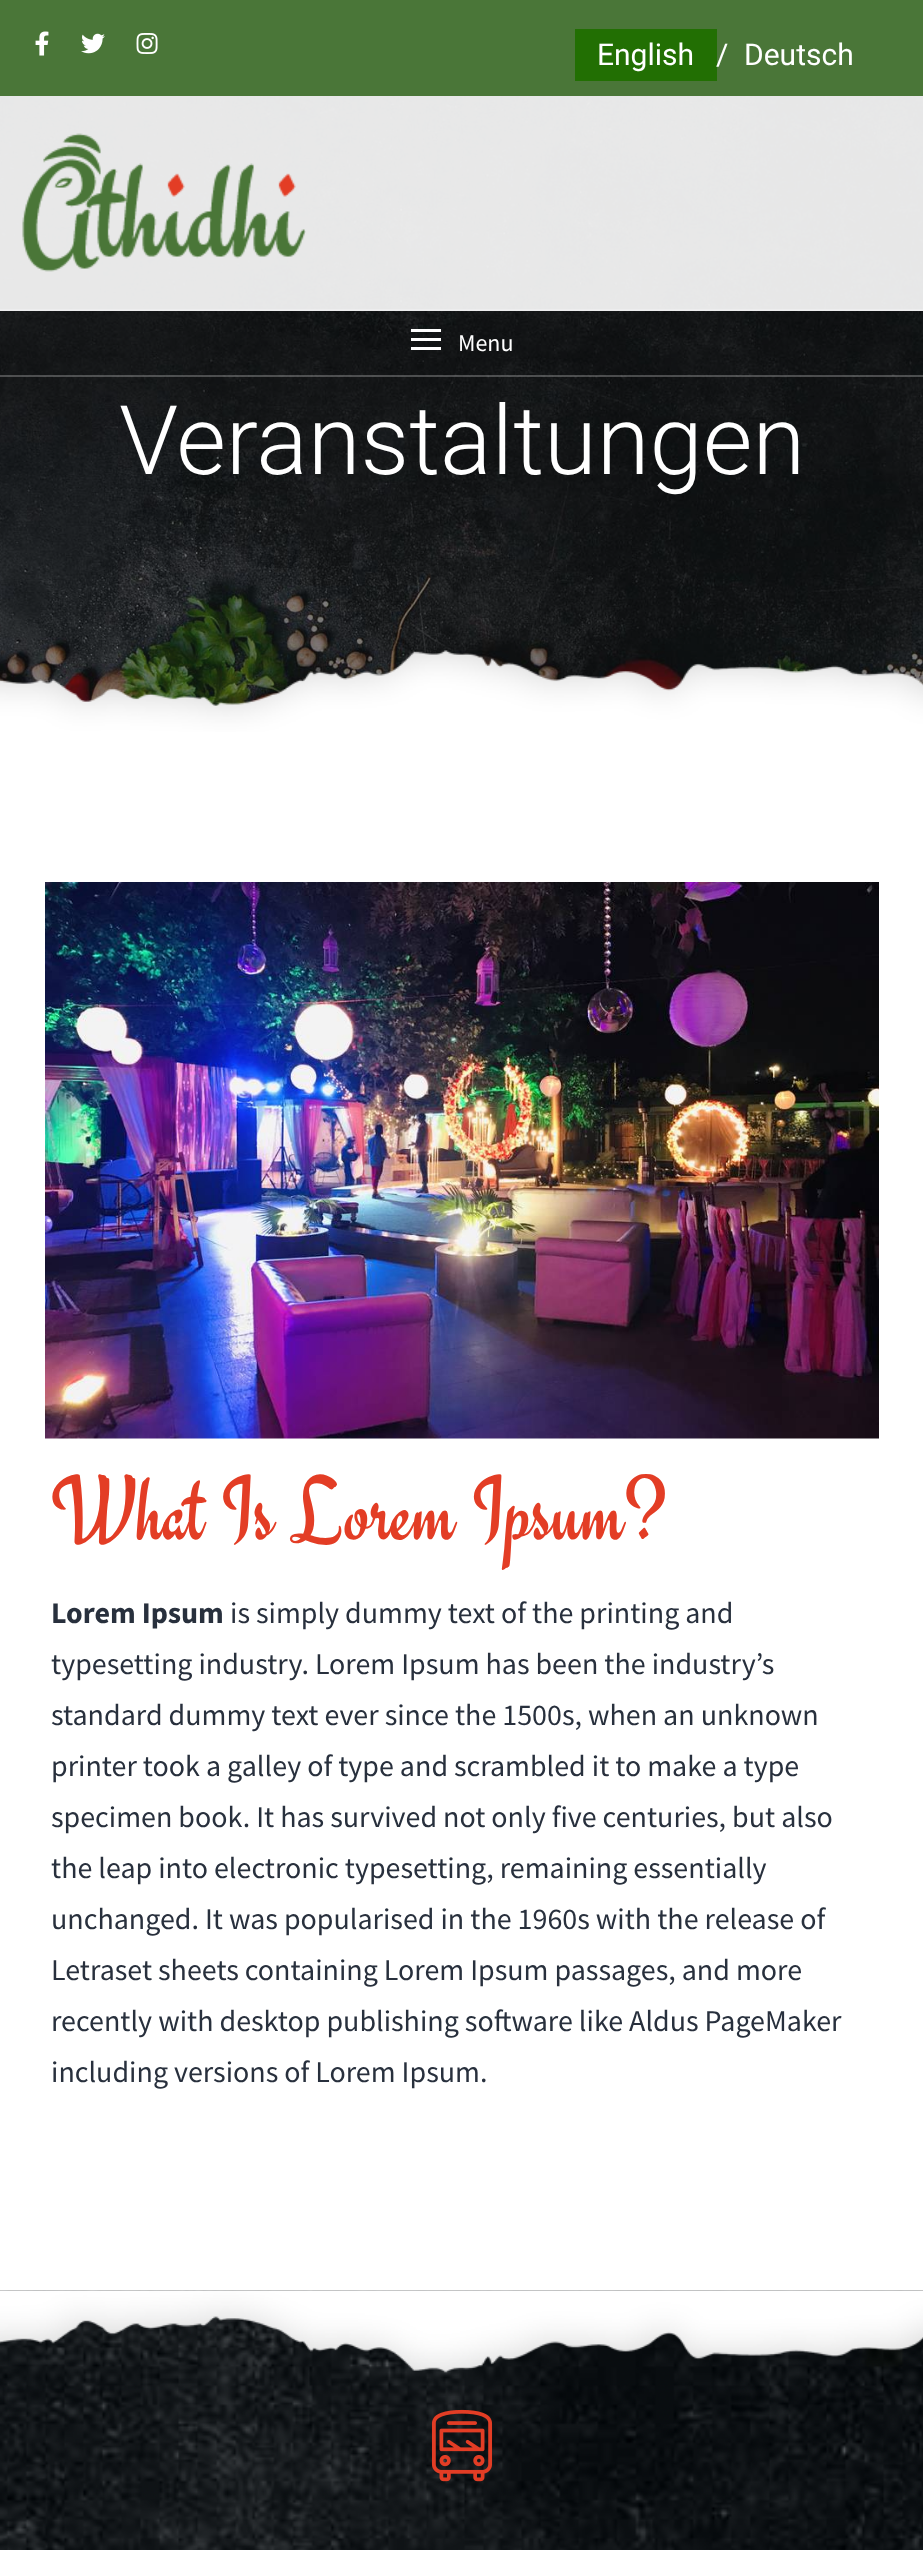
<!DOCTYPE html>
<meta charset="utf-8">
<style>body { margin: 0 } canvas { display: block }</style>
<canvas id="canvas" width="923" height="2550"></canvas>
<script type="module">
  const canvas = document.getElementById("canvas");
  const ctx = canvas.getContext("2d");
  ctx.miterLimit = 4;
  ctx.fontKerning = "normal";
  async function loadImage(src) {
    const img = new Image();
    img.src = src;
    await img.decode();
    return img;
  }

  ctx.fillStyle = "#ffffff";
  ctx.fillRect(0, 0, 923, 2550);
  ctx.fillStyle = "#4a7638";
  ctx.fillRect(0, 0, 923, 96);
  ctx.drawImage(await loadImage("img1.png"), 35, 31, 14, 25);
  ctx.drawImage(await loadImage("img2.png"), 81, 33, 24, 21);
  ctx.drawImage(await loadImage("img3.png"), 136, 33, 22, 21);
  ctx.fillStyle = "#226f03";
  ctx.fillRect(575, 29, 142, 52);
  ctx.font = "30px Roboto";
  ctx.fillStyle = "#ffffff";
  ctx.fillText("English", 597, 65);
  ctx.fillText("/", 716, 65);
  ctx.fillText("Deutsch", 744, 65);
  ctx.drawImage(await loadImage("img5.png"), 0, 96, 923, 610);
  ctx.fillStyle = "rgba(255, 255, 255, 0.9)";
  ctx.fillRect(0, 96, 923, 213);
  ctx.fillStyle = "#ededee";
  ctx.fillRect(0, 309, 923, 2);
  ctx.drawImage(await loadImage("img4.png"), 22, 133, 284, 139);
  ctx.fillStyle = "rgba(255, 255, 255, 0.25)";
  ctx.fillRect(0, 375, 923, 2);
  ctx.fillStyle = "#ffffff";
  ctx.fillRect(411, 338, 30, 3);
  ctx.fillRect(411, 329, 30, 3);
  ctx.fillRect(411, 347, 30, 3);
  ctx.font = "24px Source Sans Pro";
  ctx.fillText("Menu", 458, 351);
  ctx.font = "300 96px Roboto";
  ctx.fillText("Veranstaltungen", 119, 474);
  ctx.drawImage(await loadImage("img6.png"), 0, 650, 923, 82);
  ctx.drawImage(await loadImage("img7.png"), 45, 882, 834, 557);
  ctx.font = "93px Engagement";
  ctx.fillStyle = "#e33d25";
  ctx.fillText("What Is Lorem Ipsum?", 51, 1539);
  ctx.font = "bold 30px Source Sans Pro";
  ctx.fillStyle = "#28303d";
  ctx.fillText("Lorem Ipsum", 51, 1623);
  ctx.font = "30px Source Sans Pro";
  ctx.fillText("is simply dummy text of the printing and", 230, 1623);
  ctx.fillText("typesetting industry. Lorem Ipsum has been the industry’s", 51, 1674);
  ctx.fillText("standard dummy text ever since the 1500s, when an unknown", 51, 1725);
  ctx.fillText("printer took a galley of type and scrambled it to make a type", 51, 1776);
  ctx.fillText("specimen book. It has survived not only five centuries, but also", 51, 1827);
  ctx.fillText("the leap into electronic typesetting, remaining essentially", 51, 1878);
  ctx.fillText("unchanged. It was popularised in the 1960s with the release of", 51, 1929);
  ctx.fillText("Letraset sheets containing Lorem Ipsum passages, and more", 51, 1980);
  ctx.fillText("recently with desktop publishing software like Aldus PageMaker", 51, 2031);
  ctx.fillText("including versions of Lorem Ipsum.", 51, 2082);
  ctx.drawImage(await loadImage("img8.png"), 0, 2290, 923, 260);
  ctx.drawImage(await loadImage("img9.png"), 0, 2290, 923, 83);
  ctx.drawImage(await loadImage("img10.png"), 431, 2409, 62, 73);
</script>
